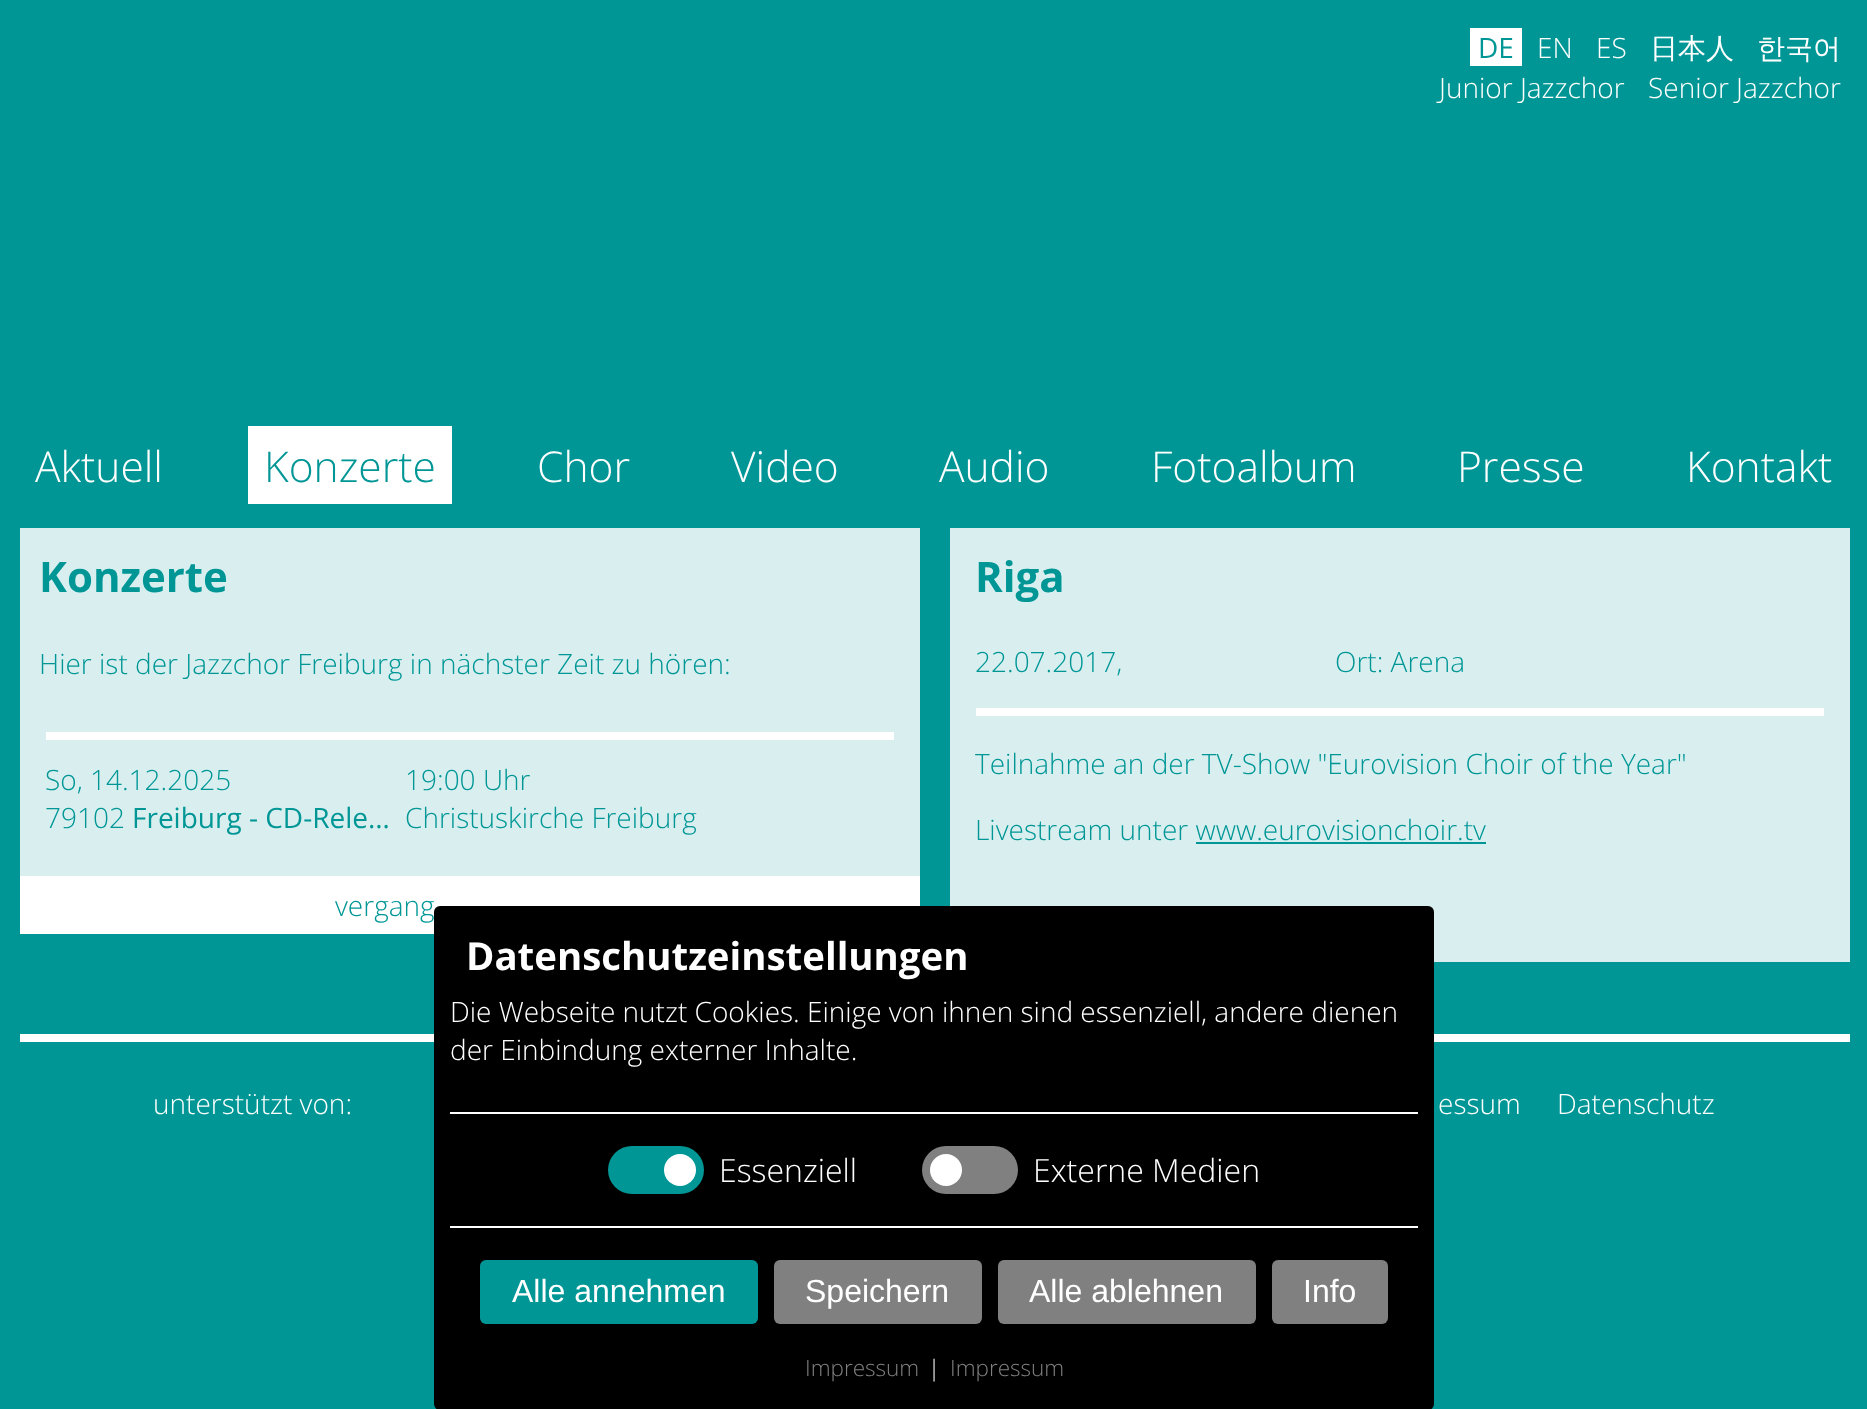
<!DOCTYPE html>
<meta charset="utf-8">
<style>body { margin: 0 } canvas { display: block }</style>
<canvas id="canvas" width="1867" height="1409"></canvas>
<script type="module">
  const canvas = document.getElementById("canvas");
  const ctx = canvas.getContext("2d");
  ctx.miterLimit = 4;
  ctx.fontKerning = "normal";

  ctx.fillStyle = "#009696";
  ctx.fillRect(0, 0, 1867, 1409);
  ctx.fillStyle = "#ffffff";
  ctx.fillRect(1470, 28, 52, 38);
  ctx.font = "28px Open Sans";
  ctx.fillStyle = "#009696";
  ctx.fillText("DE", 1478, 58);
  ctx.font = "300 28px Open Sans";
  ctx.fillStyle = "#ffffff";
  ctx.fillText("EN", 1537, 58);
  ctx.fillText("ES", 1596, 58);
  ctx.font = "500 28px WenQuanYi Zen Hei";
  ctx.fillText("日本人", 1650, 58);
  ctx.fillText("한국어", 1757, 58);
  ctx.font = "300 28px Open Sans";
  ctx.fillText("Junior Jazzchor", 1439, 98);
  ctx.fillText("Senior Jazzchor", 1648, 98);
  ctx.font = "300 42.5px Open Sans";
  ctx.fillText("Aktuell", 35, 482);
  ctx.fillRect(248, 426, 204, 78);
  ctx.fillStyle = "#009696";
  ctx.fillText("Konzerte", 264, 482);
  ctx.fillStyle = "#ffffff";
  ctx.fillText("Chor", 537, 482);
  ctx.fillText("Video", 731, 482);
  ctx.fillText("Audio", 939, 482);
  ctx.fillText("Fotoalbum", 1151, 482);
  ctx.fillText("Presse", 1457, 482);
  ctx.fillText("Kontakt", 1686, 482);
  ctx.fillStyle = "#d9efef";
  ctx.fillRect(20, 528, 900, 348);
  ctx.font = "bold 42px Open Sans";
  ctx.fillStyle = "#009696";
  ctx.fillText("Konzerte", 39, 592);
  ctx.font = "300 28px Open Sans";
  ctx.fillText("Hier ist der Jazzchor Freiburg in nächster Zeit zu hören:", 39, 674);
  ctx.fillStyle = "#ffffff";
  ctx.fillRect(46, 732, 848, 8);
  ctx.fillStyle = "#009696";
  ctx.fillText("So, 14.12.2025", 45, 790);
  ctx.fillText("19:00 Uhr", 405, 790);
  ctx.fillText("79102", 45, 828);
  ctx.font = "28px Open Sans";
  ctx.fillText("Freiburg - CD-Rele…", 132, 828);
  ctx.font = "300 28px Open Sans";
  ctx.fillText("Christuskirche Freiburg", 405, 828);
  ctx.fillStyle = "#ffffff";
  ctx.fillRect(20, 876, 900, 58);
  ctx.fillStyle = "#009696";
  ctx.fillText("vergang", 335, 916);
  ctx.fillStyle = "#d9efef";
  ctx.fillRect(950, 528, 900, 434);
  ctx.font = "bold 42px Open Sans";
  ctx.fillStyle = "#009696";
  ctx.fillText("Riga", 975, 592);
  ctx.font = "300 28px Open Sans";
  ctx.fillText("22.07.2017,", 975, 672);
  ctx.fillText("Ort: Arena", 1335, 672);
  ctx.fillStyle = "#ffffff";
  ctx.fillRect(976, 708, 848, 8);
  ctx.fillStyle = "#009696";
  ctx.fillText("Teilnahme an der TV-Show \"Eurovision Choir of the Year\"", 975, 774);
  ctx.fillText("Livestream unter www.eurovisionchoir.tv", 975, 840);
  ctx.fillRect(1196, 842, 290, 2);
  ctx.fillStyle = "#ffffff";
  ctx.fillRect(20, 1034, 1830, 8);
  ctx.fillStyle = "#000000";
  ctx.beginPath();
  ctx.roundRect(434, 906, 1000, 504, 6);
  ctx.fill();
  ctx.font = "bold 38.4px Open Sans";
  ctx.fillStyle = "#ffffff";
  ctx.fillText("Datenschutzeinstellungen", 466, 970);
  ctx.font = "300 28px Open Sans";
  ctx.fillText("Die Webseite nutzt Cookies. Einige von ihnen sind essenziell, andere dienen", 450, 1022);
  ctx.fillText("der Einbindung externer Inhalte.", 450, 1060);
  ctx.fillRect(450, 1112, 968, 2);
  ctx.fillRect(450, 1226, 968, 2);
  ctx.fillStyle = "#009696";
  ctx.beginPath();
  ctx.roundRect(608, 1146, 96, 48, 24);
  ctx.fill();
  ctx.fillStyle = "#ffffff";
  ctx.beginPath();
  ctx.arc(680, 1170, 16, 0, Math.PI * 2);
  ctx.fill();
  ctx.font = "300 32px Open Sans";
  ctx.fillText("Essenziell", 719, 1182);
  ctx.fillStyle = "#808080";
  ctx.beginPath();
  ctx.roundRect(922, 1146, 96, 48, 24);
  ctx.fill();
  ctx.fillStyle = "#ffffff";
  ctx.beginPath();
  ctx.arc(946, 1170, 16, 0, Math.PI * 2);
  ctx.fill();
  ctx.fillText("Externe Medien", 1033, 1182);
  ctx.fillStyle = "#009696";
  ctx.beginPath();
  ctx.roundRect(480, 1260, 278, 64, 6);
  ctx.fill();
  ctx.font = "32px Liberation Sans";
  ctx.fillStyle = "#ffffff";
  ctx.fillText("Alle annehmen", 512, 1302);
  ctx.fillStyle = "#808080";
  ctx.beginPath();
  ctx.roundRect(774, 1260, 208, 64, 6);
  ctx.fill();
  ctx.fillStyle = "#ffffff";
  ctx.fillText("Speichern", 805, 1302);
  ctx.fillStyle = "#808080";
  ctx.beginPath();
  ctx.roundRect(998, 1260, 258, 64, 6);
  ctx.fill();
  ctx.fillStyle = "#ffffff";
  ctx.fillText("Alle ablehnen", 1029, 1302);
  ctx.fillStyle = "#808080";
  ctx.beginPath();
  ctx.roundRect(1272, 1260, 116, 64, 6);
  ctx.fill();
  ctx.fillStyle = "#ffffff";
  ctx.fillText("Info", 1303, 1302);
  ctx.font = "300 22.5px Open Sans";
  ctx.fillStyle = "#808080";
  ctx.fillText("Impressum", 805, 1376);
  ctx.fillStyle = "#ffffff";
  ctx.fillText("|", 928, 1376);
  ctx.fillStyle = "#808080";
  ctx.fillText("Impressum", 950, 1376);
  ctx.font = "300 28px Open Sans";
  ctx.fillStyle = "#ffffff";
  ctx.fillText("unterstützt von:", 153, 1114);
  ctx.fillText("essum", 1438, 1114);
  ctx.fillText("Datenschutz", 1557, 1114);
</script>
